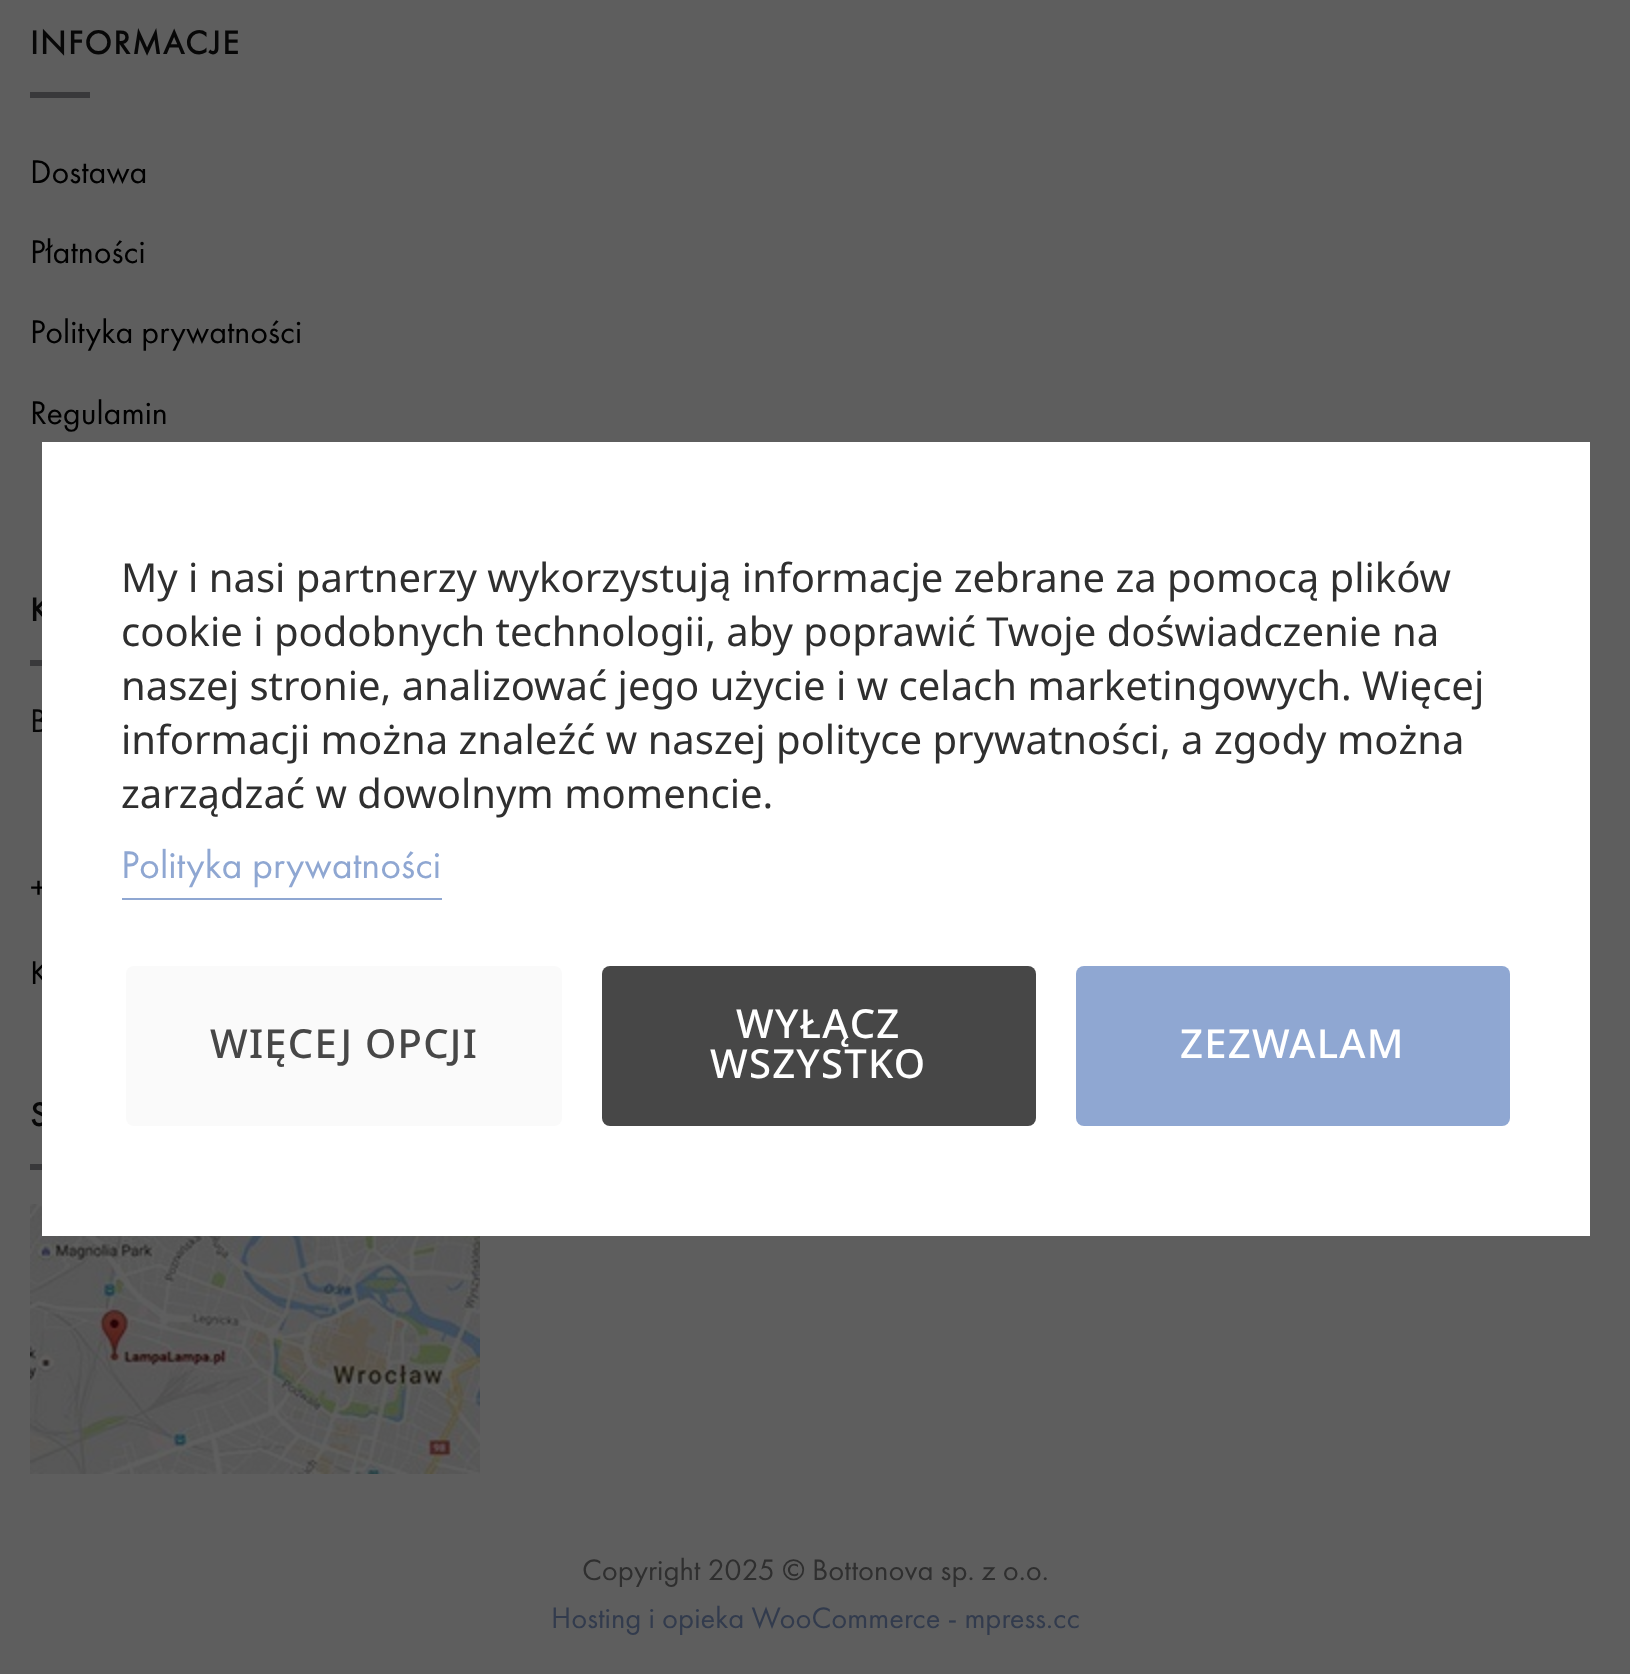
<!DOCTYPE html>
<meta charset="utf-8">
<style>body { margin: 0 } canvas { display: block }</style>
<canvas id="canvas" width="1630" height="1674"></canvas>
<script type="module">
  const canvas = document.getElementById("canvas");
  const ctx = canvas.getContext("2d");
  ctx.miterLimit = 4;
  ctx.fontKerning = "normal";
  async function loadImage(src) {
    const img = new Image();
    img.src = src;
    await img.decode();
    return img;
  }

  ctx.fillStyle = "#5e5e5e";
  ctx.fillRect(0, 0, 1630, 1674);
  ctx.letterSpacing = "1.75px";
  ctx.font = "bold 34px Futura PT";
  ctx.fillStyle = "#070707";
  ctx.fillText("INFORMACJE", 30, 54);
  ctx.fillStyle = "#39393b";
  ctx.fillRect(30, 92, 60, 6);
  ctx.letterSpacing = "0px";
  ctx.font = "34px Futura PT";
  ctx.fillStyle = "#000000";
  ctx.fillText("Dostawa", 30, 183);
  ctx.fillText("Płatności", 30, 263);
  ctx.fillText("Polityka prywatności", 30, 343);
  ctx.fillText("Regulamin", 30, 424);
  ctx.letterSpacing = "1.75px";
  ctx.font = "bold 34px Futura PT";
  ctx.fillStyle = "#070707";
  ctx.fillText("K", 30, 621);
  ctx.fillStyle = "#39393b";
  ctx.fillRect(30, 660, 12, 6);
  ctx.font = "34px Futura PT";
  ctx.fillStyle = "#070707";
  ctx.fillText("B", 30, 732);
  ctx.fillStyle = "#000000";
  ctx.fillText("+", 30, 899);
  ctx.fillText("K", 30, 984);
  ctx.font = "bold 34px Futura PT";
  ctx.fillStyle = "#070707";
  ctx.fillText("S", 30, 1126);
  ctx.fillStyle = "#39393b";
  ctx.fillRect(30, 1164, 12, 6);
  ctx.drawImage(await loadImage("img1.png"), 30, 1204, 450, 270);
  ctx.letterSpacing = "0px";
  ctx.font = "30.6px Futura PT";
  ctx.fillStyle = "#2f2f2f";
  ctx.fillText("Copyright 2025 © Bottonova sp. z o.o.", 582, 1580);
  ctx.fillStyle = "#323b4d";
  ctx.fillText("Hosting i opieka WooCommerce - mpress.cc", 551, 1628);
  ctx.fillStyle = "#ffffff";
  ctx.fillRect(42, 442, 1548, 794);
  ctx.font = "40px Noto Sans";
  ctx.fillStyle = "#2f2f2f";
  ctx.fillText("My i nasi partnerzy wykorzystują informacje zebrane za pomocą plików", 121, 592);
  ctx.fillText("cookie i podobnych technologii, aby poprawić Twoje doświadczenie na", 121, 646);
  ctx.fillText("naszej stronie, analizować jego użycie i w celach marketingowych. Więcej", 121, 700);
  ctx.fillText("informacji można znaleźć w naszej polityce prywatności, a zgody można", 121, 754);
  ctx.fillText("zarządzać w dowolnym momencie.", 121, 808);
  ctx.font = "40px Futura PT";
  ctx.fillStyle = "#8fa7d2";
  ctx.fillText("Polityka prywatności", 121, 878);
  ctx.fillRect(122, 898, 320, 2);
  ctx.fillStyle = "#fafafa";
  ctx.beginPath();
  ctx.roundRect(126, 966, 436, 160, 8);
  ctx.fill();
  ctx.letterSpacing = "1.25px";
  ctx.font = "500 40px Noto Sans";
  ctx.fillStyle = "#474747";
  ctx.fillText("WIĘCEJ OPCJI", 210, 1058);
  ctx.beginPath();
  ctx.roundRect(602, 966, 434, 160, 8);
  ctx.fill();
  ctx.fillStyle = "#ffffff";
  ctx.fillText("WYŁĄCZ", 736, 1038);
  ctx.fillText("WSZYSTKO", 710, 1078);
  ctx.fillStyle = "#8fa7d2";
  ctx.beginPath();
  ctx.roundRect(1076, 966, 434, 160, 8);
  ctx.fill();
  ctx.fillStyle = "#ffffff";
  ctx.fillText("ZEZWALAM", 1180, 1058);
</script>
